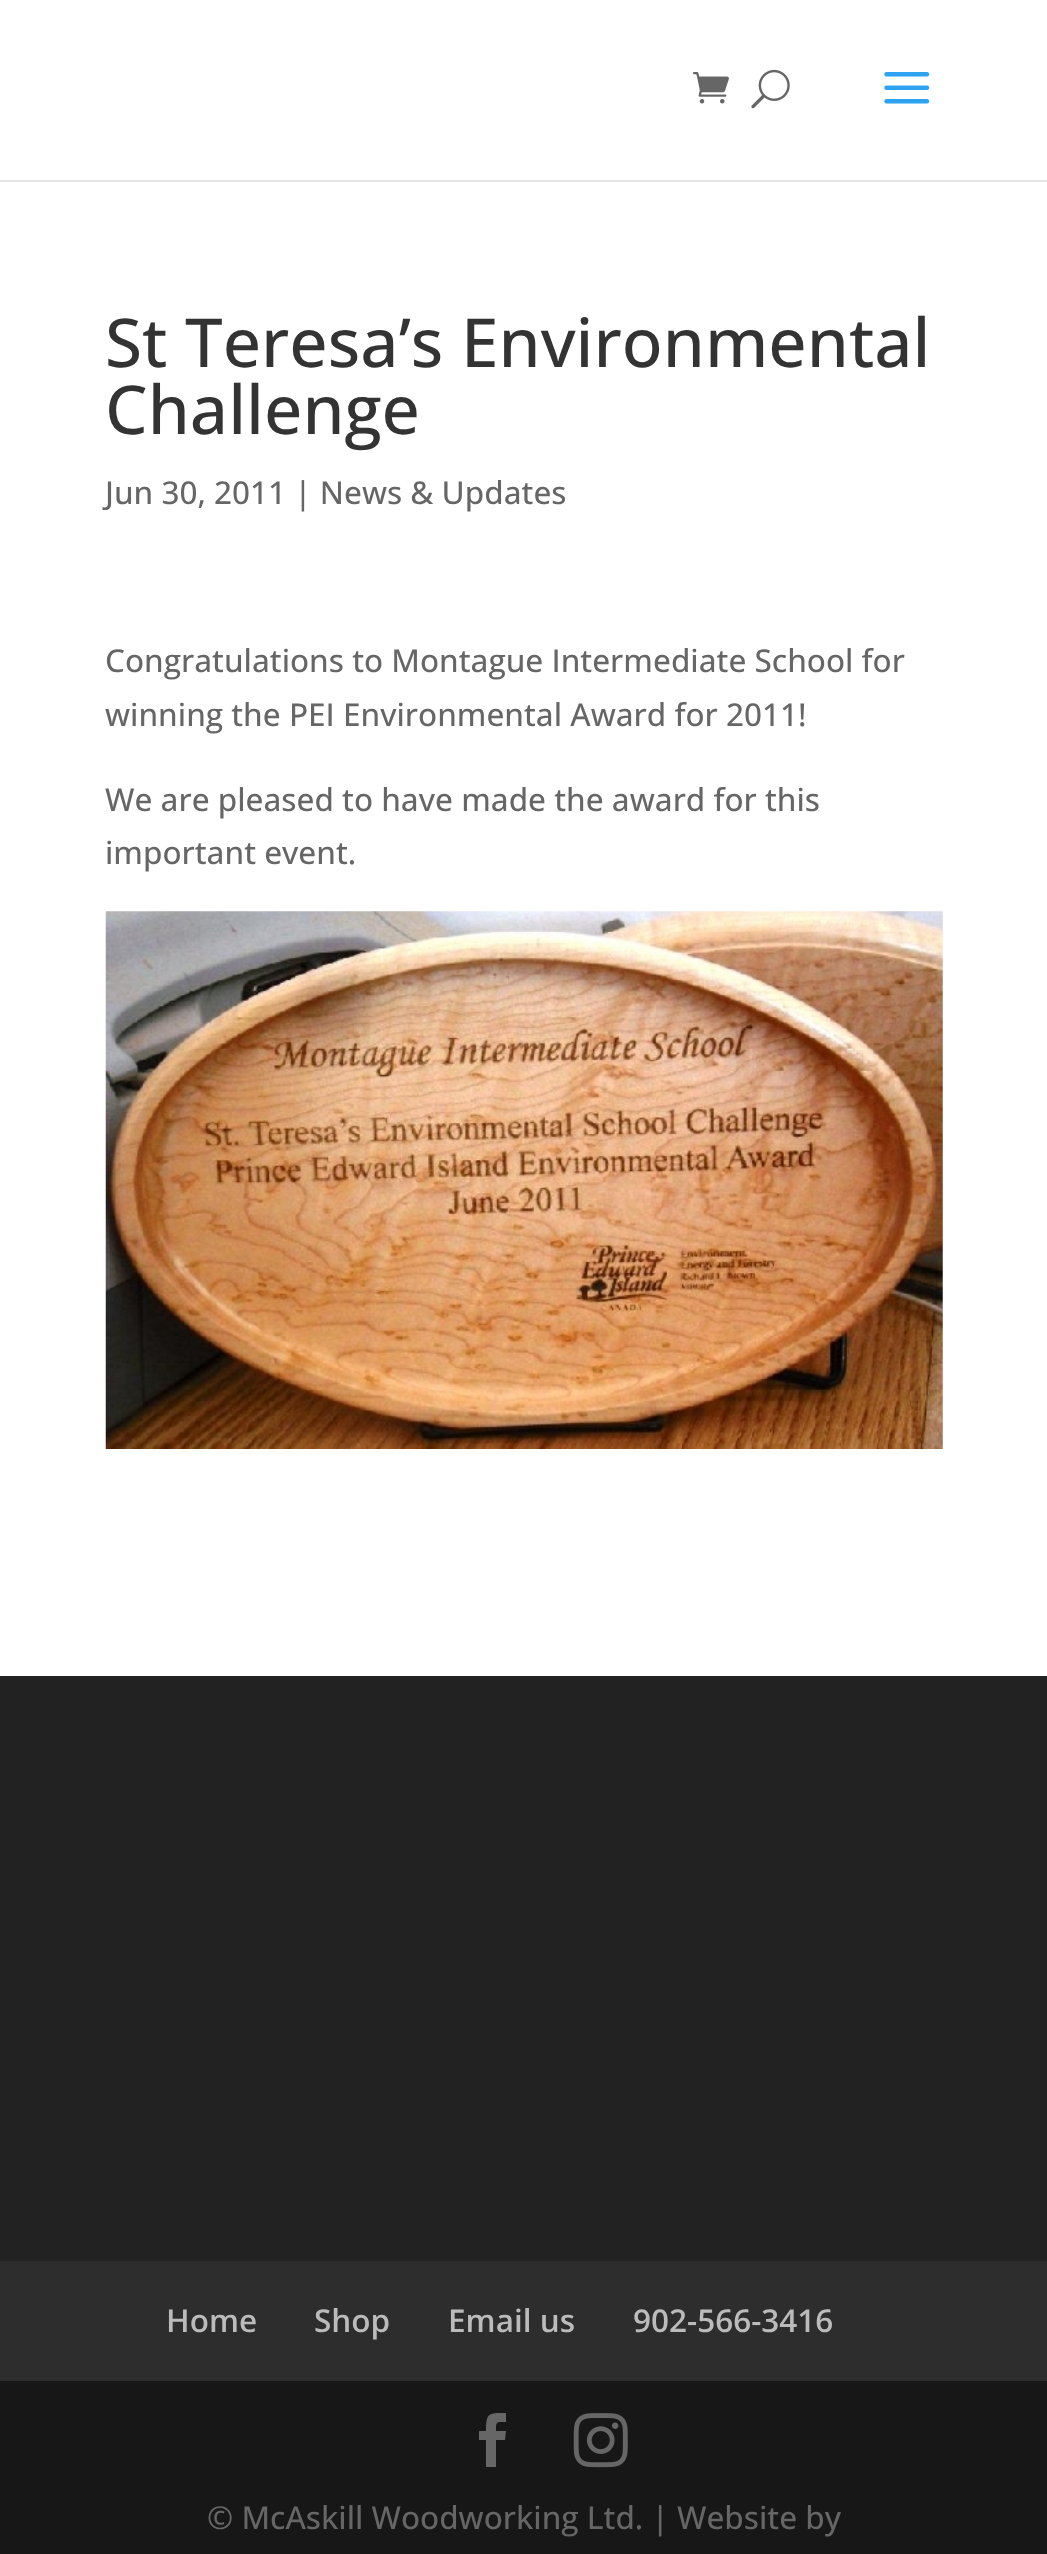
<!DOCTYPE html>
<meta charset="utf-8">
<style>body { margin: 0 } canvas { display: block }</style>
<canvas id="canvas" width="1047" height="2554"></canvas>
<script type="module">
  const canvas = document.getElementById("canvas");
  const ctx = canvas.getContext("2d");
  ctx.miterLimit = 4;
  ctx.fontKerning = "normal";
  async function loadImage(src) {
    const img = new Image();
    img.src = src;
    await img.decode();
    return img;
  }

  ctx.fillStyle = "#222222";
  ctx.fillRect(0, 0, 1047, 2554);
  ctx.fillStyle = "#e6e6e6";
  ctx.beginPath();
  ctx.moveTo(0, 180);
  ctx.lineTo(0, 182);
  ctx.lineTo(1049, 182);
  ctx.lineTo(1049, 2);
  ctx.lineTo(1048, 2);
  ctx.lineTo(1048, 180);
  ctx.closePath();
  ctx.fill();
  ctx.fillStyle = "#ffffff";
  ctx.fillRect(0, 0, 1047, 180);
  ctx.drawImage(await loadImage("img1.png"), 693, 72, 36, 32);
  ctx.drawImage(await loadImage("img2.png"), 751, 69, 39, 40);
  ctx.drawImage(await loadImage("img3.png"), 884, 72, 46, 32);
  ctx.fillRect(0, 182, 1047, 1494);
  ctx.font = "500 67.5px Open Sans";
  ctx.fillStyle = "#333333";
  ctx.fillText("St Teresa’s Environmental", 105, 367);
  ctx.fillText("Challenge", 105, 434);
  ctx.font = "500 31.5px Open Sans";
  ctx.fillStyle = "#666666";
  ctx.fillText("Jun 30, 2011 | News & Updates", 105, 504);
  ctx.fillText("Congratulations to Montague Intermediate School for", 105, 672);
  ctx.fillText("winning the PEI Environmental Award for 2011!", 105, 726);
  ctx.fillText("We are pleased to have made the award for this", 105, 811);
  ctx.fillText("important event.", 105, 864);
  ctx.drawImage(await loadImage("img4.png"), 105, 911, 838, 538);
  ctx.fillStyle = "#2d2d2d";
  ctx.fillRect(0, 2261, 1047, 120);
  ctx.font = "600 31.5px Open Sans";
  ctx.fillStyle = "#bbbbbb";
  ctx.fillText("Home", 166, 2332);
  ctx.fillText("Shop", 314, 2332);
  ctx.fillText("Email us", 448, 2332);
  ctx.fillText("902-566-3416", 633, 2332);
  ctx.fillStyle = "#171717";
  ctx.fillRect(0, 2381, 1047, 173);
  ctx.fillStyle = "#666666";
  ctx.beginPath();
  ctx.moveTo(486, 2467);
  ctx.lineTo(496, 2467);
  ctx.lineTo(496, 2440);
  ctx.lineTo(505, 2440);
  ctx.lineTo(506, 2431);
  ctx.lineTo(496, 2431);
  ctx.bezierCurveTo(496, 2421, 496, 2422, 506, 2422);
  ctx.lineTo(506, 2413);
  ctx.bezierCurveTo(489, 2413, 486, 2412, 486, 2431);
  ctx.lineTo(479, 2431);
  ctx.lineTo(479, 2440);
  ctx.lineTo(486, 2440);
  ctx.closePath();
  ctx.fill();
  ctx.drawImage(await loadImage("img5.png"), 573, 2413, 55, 55);
  ctx.font = "500 31.5px Open Sans";
  ctx.fillText("© McAskill Woodworking Ltd. | Website by", 207, 2529);
</script>
